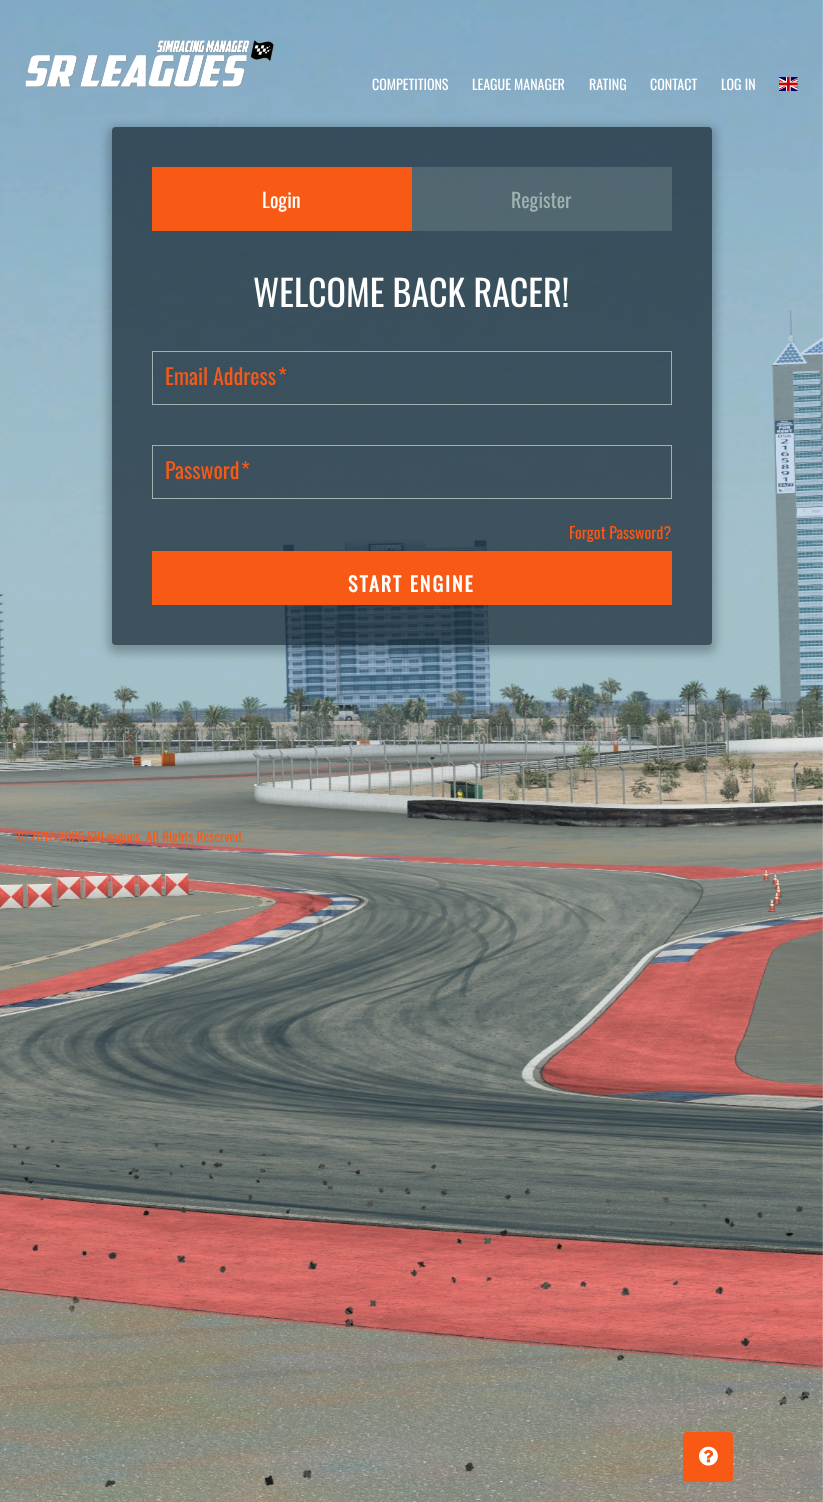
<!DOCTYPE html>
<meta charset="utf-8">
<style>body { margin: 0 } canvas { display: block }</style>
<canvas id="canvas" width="823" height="1502"></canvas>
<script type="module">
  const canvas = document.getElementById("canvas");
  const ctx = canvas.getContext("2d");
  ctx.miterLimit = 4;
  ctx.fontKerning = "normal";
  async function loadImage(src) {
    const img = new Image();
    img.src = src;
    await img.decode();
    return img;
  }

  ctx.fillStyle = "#ffffff";
  ctx.fillRect(0, 0, 823, 1502);
  ctx.drawImage(await loadImage("img1.png"), 0, 0, 823, 1502);
  ctx.drawImage(await loadImage("img2.png"), 25, 40, 250, 48);
  ctx.font = "14px Oswald";
  ctx.fillText("COMPETITIONS", 372, 90);
  ctx.fillText("LEAGUE MANAGER", 472, 90);
  ctx.fillText("RATING", 589, 90);
  ctx.fillText("CONTACT", 650, 90);
  ctx.fillText("LOG IN", 721, 90);
  ctx.drawImage(await loadImage("img3.png"), 779, 77, 19, 14);
  ctx.save();
  ctx.beginPath();
  ctx.moveTo(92, 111);
  ctx.lineTo(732, 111);
  ctx.lineTo(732, 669);
  ctx.lineTo(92, 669);
  ctx.closePath();
  ctx.moveTo(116, 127);
  ctx.lineTo(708, 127);
  ctx.bezierCurveTo(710, 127, 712, 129, 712, 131);
  ctx.lineTo(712, 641);
  ctx.bezierCurveTo(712, 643, 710, 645, 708, 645);
  ctx.lineTo(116, 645);
  ctx.bezierCurveTo(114, 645, 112, 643, 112, 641);
  ctx.lineTo(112, 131);
  ctx.bezierCurveTo(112, 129, 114, 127, 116, 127);
  ctx.closePath();
  ctx.clip("evenodd");
  ctx.fillStyle = "rgba(19, 35, 47, 0.3)";
  ctx.filter = "blur(5px)";
  ctx.beginPath();
  ctx.roundRect(108, 127, 608, 526, 8);
  ctx.fill();
  ctx.filter = "none";
  ctx.restore();
  ctx.fillStyle = "rgba(19, 35, 47, 0.7)";
  ctx.beginPath();
  ctx.roundRect(112, 127, 600, 518, 4);
  ctx.fill();
  ctx.fillStyle = "#f85a16";
  ctx.fillRect(152, 167, 260, 64);
  ctx.font = "20px Oswald";
  ctx.fillStyle = "#ffffff";
  ctx.fillText("Login", 262, 208);
  ctx.fillStyle = "rgba(160, 179, 176, 0.25)";
  ctx.fillRect(412, 167, 260, 64);
  ctx.fillStyle = "#a0b3b0";
  ctx.fillText("Register", 511, 208);
  ctx.font = "36px Oswald";
  ctx.fillStyle = "#ffffff";
  ctx.fillText("WELCOME BACK RACER!", 253, 307);
  ctx.strokeStyle = "#a0b3b0";
  ctx.strokeRect(152.5, 351.5, 519, 53);
  ctx.font = "22px Oswald";
  ctx.fillStyle = "#f85a16";
  ctx.fillText("Email Address", 165, 385);
  ctx.fillText("*", 278, 385);
  ctx.strokeRect(152.5, 445.5, 519, 53);
  ctx.fillText("Password", 165, 479);
  ctx.fillText("*", 241, 479);
  ctx.font = "16px Oswald";
  ctx.fillText("Forgot Password?", 569, 539);
  ctx.fillRect(152, 551, 520, 54);
  ctx.letterSpacing = "2px";
  ctx.font = "bold 20px Oswald";
  ctx.fillStyle = "#ffffff";
  ctx.fillText("START ENGINE", 348, 592);
  ctx.letterSpacing = "0px";
  ctx.font = "13.6px Oswald";
  ctx.fillStyle = "#f85a16";
  ctx.fillText("© 2017-2025 SRLeagues. All Rights Reserved.", 15, 842);
  ctx.beginPath();
  ctx.roundRect(684, 1433, 48, 48, 3);
  ctx.fill();
  ctx.strokeStyle = "#f85a16";
  ctx.lineWidth = 2;
  ctx.stroke();
  ctx.drawImage(await loadImage("img4.png"), 699, 1446, 19, 20);
  ctx.save();
  ctx.beginPath();
  ctx.moveTo(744, 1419);
  ctx.lineTo(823, 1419);
  ctx.lineTo(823, 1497);
  ctx.lineTo(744, 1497);
  ctx.closePath();
  ctx.moveTo(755, 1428);
  ctx.lineTo(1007, 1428);
  ctx.bezierCurveTo(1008, 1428, 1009, 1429, 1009, 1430);
  ctx.lineTo(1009, 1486);
  ctx.bezierCurveTo(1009, 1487, 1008, 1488, 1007, 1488);
  ctx.lineTo(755, 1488);
  ctx.bezierCurveTo(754, 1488, 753, 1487, 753, 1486);
  ctx.lineTo(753, 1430);
  ctx.bezierCurveTo(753, 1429, 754, 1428, 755, 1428);
  ctx.closePath();
  ctx.clip("evenodd");
  ctx.fillStyle = "#808080";
  ctx.filter = "blur(2.5px)";
  ctx.beginPath();
  ctx.roundRect(753, 1428, 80, 60, 2);
  ctx.fill();
  ctx.filter = "none";
  ctx.restore();
</script>
